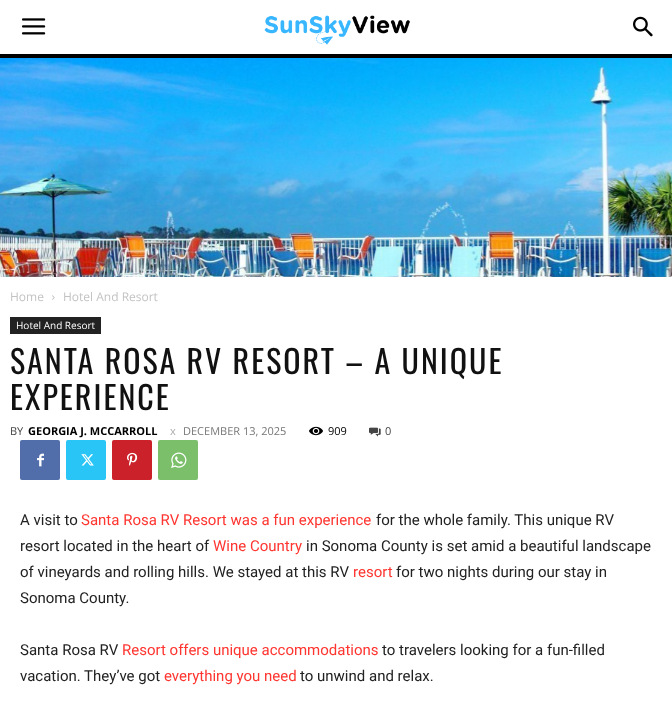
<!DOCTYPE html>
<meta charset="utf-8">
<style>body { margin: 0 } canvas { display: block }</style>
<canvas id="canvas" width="672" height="717"></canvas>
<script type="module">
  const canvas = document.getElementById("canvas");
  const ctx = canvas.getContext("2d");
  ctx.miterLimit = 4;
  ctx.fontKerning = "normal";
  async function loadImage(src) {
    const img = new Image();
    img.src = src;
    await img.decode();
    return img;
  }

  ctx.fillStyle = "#ffffff";
  ctx.fillRect(0, 0, 672, 717);
  ctx.drawImage(await loadImage("img1.png"), 22, 18, 24, 17);
  ctx.drawImage(await loadImage("img2.png"), 264, 15, 146, 30);
  ctx.drawImage(await loadImage("img3.png"), 633, 16, 20, 21);
  ctx.fillStyle = "#000000";
  ctx.fillRect(0, 54, 672, 4);
  ctx.drawImage(await loadImage("img4.png"), 0, 58, 672, 219);
  ctx.font = "12px Open Sans";
  ctx.fillStyle = "#c3c3c3";
  ctx.fillText("Home", 10, 301);
  ctx.drawImage(await loadImage("img5.png"), 52, 295, 3, 5);
  ctx.fillText("Hotel And Resort", 63, 301);
  ctx.fillStyle = "#222222";
  ctx.fillRect(10, 317, 91, 17);
  ctx.font = "10px Open Sans";
  ctx.fillStyle = "#ffffff";
  ctx.fillText("Hotel And Resort", 16, 329);
  ctx.letterSpacing = "2px";
  ctx.font = "32px Oswald";
  ctx.fillStyle = "#111111";
  ctx.fillText("SANTA ROSA RV RESORT – A UNIQUE", 10, 374);
  ctx.fillText("EXPERIENCE", 10, 410);
  ctx.letterSpacing = "0px";
  ctx.font = "11px Open Sans";
  ctx.fillStyle = "#444444";
  ctx.fillText("BY", 10, 435);
  ctx.font = "bold 11px Open Sans";
  ctx.fillStyle = "#000000";
  ctx.fillText("GEORGIA J. MCCARROLL", 28, 435);
  ctx.font = "11px Open Sans";
  ctx.fillStyle = "#aaaaaa";
  ctx.fillText("x", 170, 435);
  ctx.fillStyle = "#767676";
  ctx.fillText("DECEMBER 13, 2025", 183, 435);
  ctx.drawImage(await loadImage("img6.png"), 309, 426, 14, 10);
  ctx.fillStyle = "#000000";
  ctx.fillText("909", 328, 435);
  ctx.drawImage(await loadImage("img7.png"), 369, 427, 12, 10);
  ctx.fillStyle = "#444444";
  ctx.fillText("0", 385, 435);
  ctx.fillStyle = "#516eab";
  ctx.beginPath();
  ctx.roundRect(20, 440, 40, 40, 2);
  ctx.fill();
  ctx.drawImage(await loadImage("img8.png"), 37, 453, 7, 14);
  ctx.fillStyle = "#29c5f6";
  ctx.beginPath();
  ctx.roundRect(66, 440, 40, 40, 2);
  ctx.fill();
  ctx.drawImage(await loadImage("img9.png"), 81, 454, 13, 12);
  ctx.fillStyle = "#ca212a";
  ctx.beginPath();
  ctx.roundRect(112, 440, 40, 40, 2);
  ctx.fill();
  ctx.drawImage(await loadImage("img10.png"), 127, 452, 11, 14);
  ctx.fillStyle = "#7bbf6a";
  ctx.beginPath();
  ctx.roundRect(158, 440, 40, 40, 2);
  ctx.fill();
  ctx.drawImage(await loadImage("img11.png"), 171, 452, 16, 16);
  ctx.font = "15px Roboto";
  ctx.fillStyle = "#222222";
  ctx.fillText("A visit to", 20, 525);
  ctx.fillStyle = "#ff3530";
  ctx.fillText("Santa Rosa RV Resort was a fun experience", 81, 525);
  ctx.fillStyle = "#222222";
  ctx.fillText("for the whole family. This unique RV", 376, 525);
  ctx.fillText("resort located in the heart of", 20, 551);
  ctx.fillStyle = "#ff3530";
  ctx.fillText("Wine Country", 213, 551);
  ctx.fillStyle = "#222222";
  ctx.fillText("in Sonoma County is set amid a beautiful landscape", 306, 551);
  ctx.fillText("of vineyards and rolling hills. We stayed at this RV", 20, 577);
  ctx.fillStyle = "#ff3530";
  ctx.fillText("resort", 353, 577);
  ctx.fillStyle = "#222222";
  ctx.fillText("for two nights during our stay in", 396, 577);
  ctx.fillText("Sonoma County.", 20, 603);
  ctx.fillText("Santa Rosa RV", 20, 655);
  ctx.fillStyle = "#ff3530";
  ctx.fillText("Resort offers unique accommodations", 122, 655);
  ctx.fillStyle = "#222222";
  ctx.fillText("to travelers looking for a fun-filled", 382, 655);
  ctx.fillText("vacation. They’ve got", 20, 681);
  ctx.fillStyle = "#ff3530";
  ctx.fillText("everything you need", 164, 681);
  ctx.fillStyle = "#222222";
  ctx.fillText("to unwind and relax.", 300, 681);
</script>
